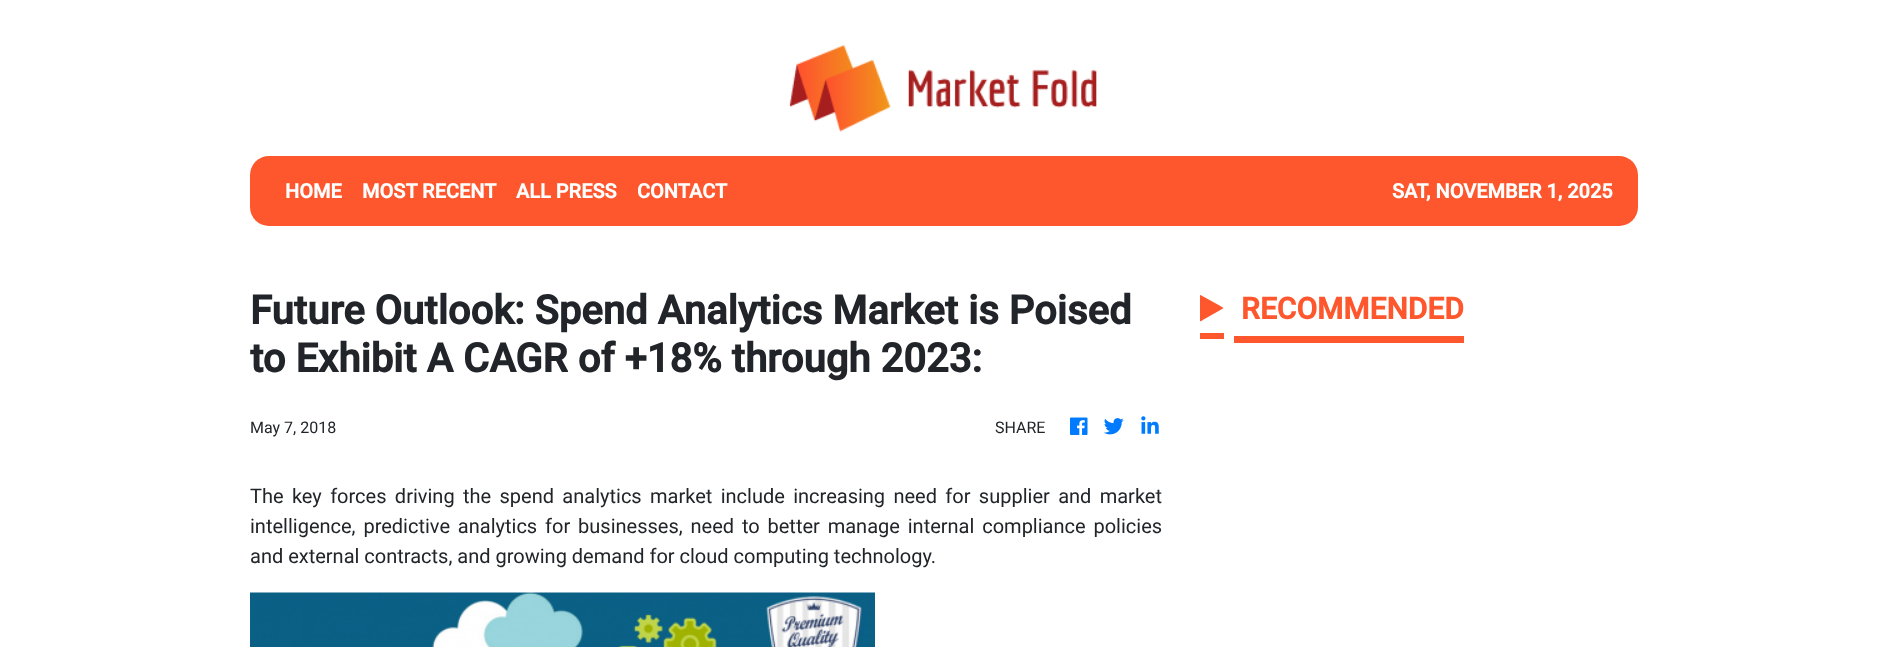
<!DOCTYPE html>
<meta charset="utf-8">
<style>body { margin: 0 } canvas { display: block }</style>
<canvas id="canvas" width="1887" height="647"></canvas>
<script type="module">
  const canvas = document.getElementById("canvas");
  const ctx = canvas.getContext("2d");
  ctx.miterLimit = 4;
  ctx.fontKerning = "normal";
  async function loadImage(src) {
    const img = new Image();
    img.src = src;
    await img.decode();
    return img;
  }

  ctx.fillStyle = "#ffffff";
  ctx.fillRect(0, 0, 1887, 647);
  ctx.drawImage(await loadImage("img1.png"), 789, 44, 308, 88);
  ctx.fillStyle = "#fe572d";
  ctx.beginPath();
  ctx.roundRect(250, 156, 1388, 70, 19);
  ctx.fill();
  ctx.font = "bold 20px Roboto";
  ctx.fillStyle = "#ffffff";
  ctx.fillText("HOME", 285, 198);
  ctx.fillText("MOST RECENT", 362, 198);
  ctx.fillText("ALL PRESS", 516, 198);
  ctx.fillText("CONTACT", 637, 198);
  ctx.fillText("SAT, NOVEMBER 1, 2025", 1392, 198);
  ctx.font = "bold 40px Roboto";
  ctx.fillStyle = "#212529";
  ctx.fillText("Future Outlook: Spend Analytics Market is Poised", 250, 324);
  ctx.fillText("to Exhibit A CAGR of +18% through 2023:", 250, 372);
  ctx.font = "16px Roboto";
  ctx.fillText("May 7, 2018", 250, 433);
  ctx.fillText("SHARE", 995, 433);
  ctx.drawImage(await loadImage("img2.png"), 1070, 417, 18, 18);
  ctx.drawImage(await loadImage("img3.png"), 1104, 418, 20, 17);
  ctx.drawImage(await loadImage("img4.png"), 1141, 416, 18, 18);
  ctx.wordSpacing = "3.4px";
  ctx.font = "20px Roboto";
  ctx.fillText("The key forces driving the spend analytics market include increasing need for supplier and market", 250, 503);
  ctx.wordSpacing = "2.9px";
  ctx.fillText("intelligence, predictive analytics for businesses, need to better manage internal compliance policies", 250, 533);
  ctx.wordSpacing = "0px";
  ctx.fillText("and external contracts, and growing demand for cloud computing technology.", 250, 563);
  ctx.drawImage(await loadImage("img5.png"), 250, 592, 625, 55);
  ctx.fillStyle = "#fe572d";
  ctx.fillRect(1200, 333, 24, 6);
  ctx.fillRect(1234, 336, 230, 7);
  ctx.beginPath();
  ctx.moveTo(1223, 308.5);
  ctx.lineTo(1204.5, 319);
  ctx.bezierCurveTo(1204, 319, 1201, 322, 1200, 321);
  ctx.lineTo(1200, 295.5);
  ctx.lineTo(1200.5, 295);
  ctx.lineTo(1219.5, 305.5);
  ctx.lineTo(1223.5, 308);
  ctx.closePath();
  ctx.fill();
  ctx.font = "bold 30px Roboto";
  ctx.fillText("RECOMMENDED", 1241, 319);
</script>
